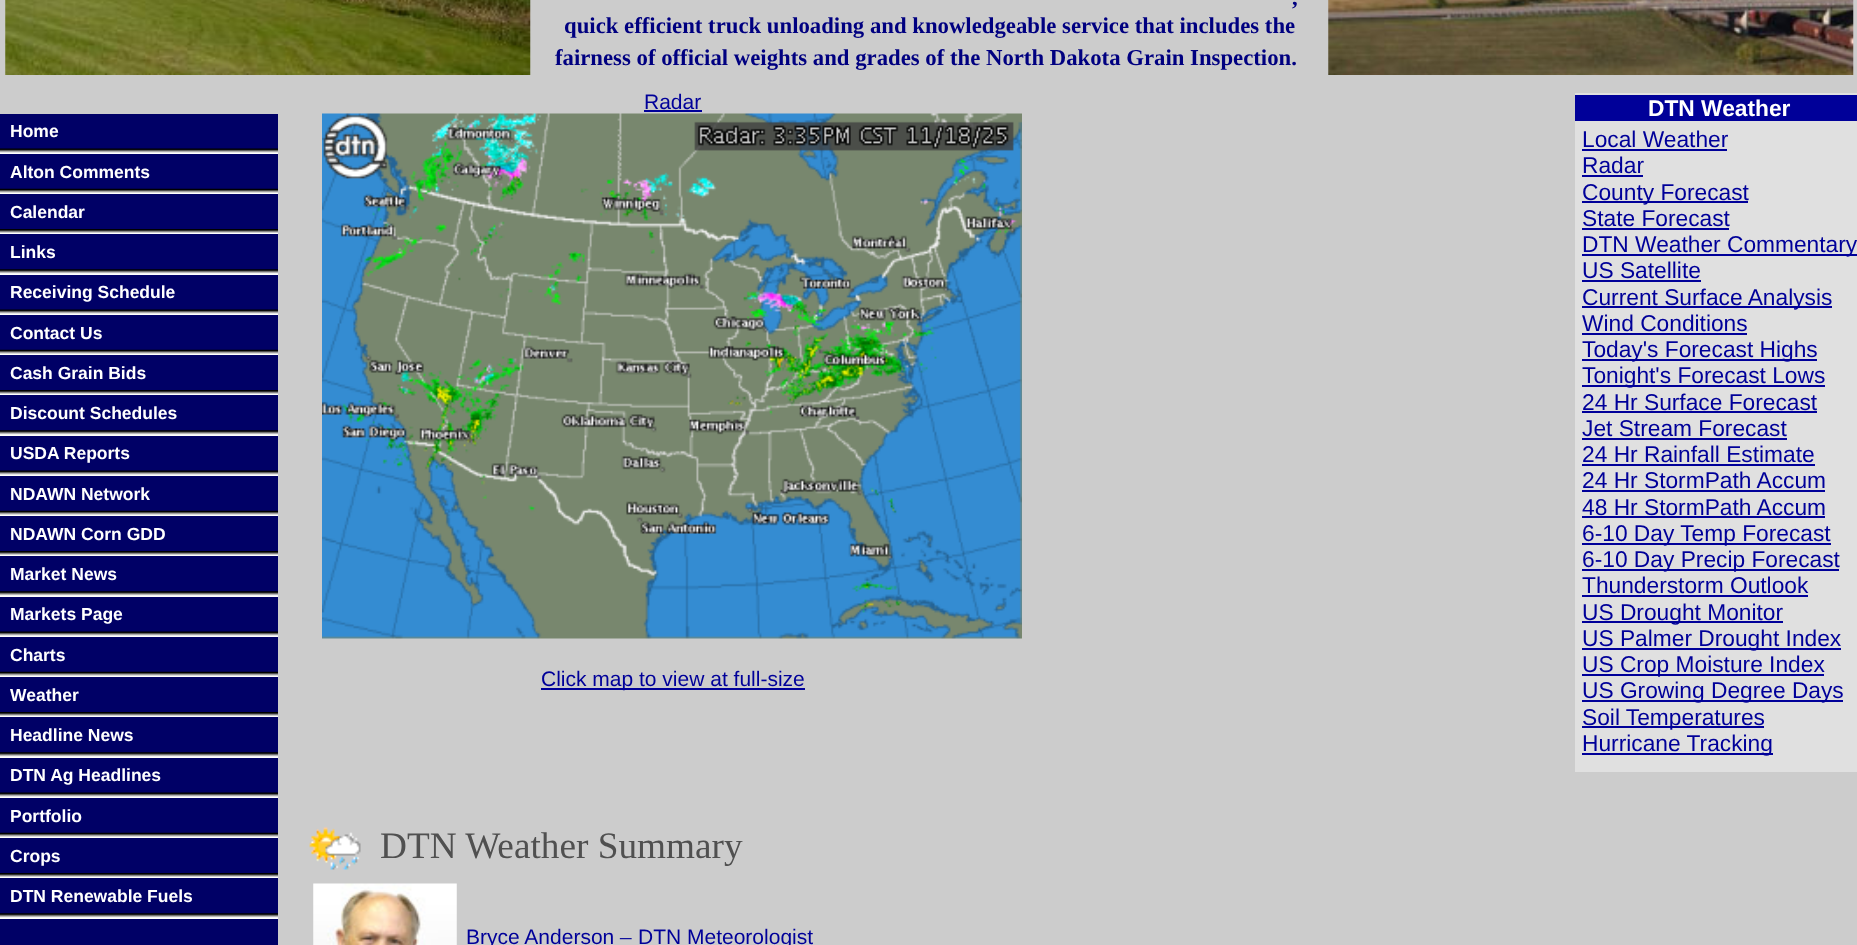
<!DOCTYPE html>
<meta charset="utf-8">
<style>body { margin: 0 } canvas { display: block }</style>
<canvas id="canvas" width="1857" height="945"></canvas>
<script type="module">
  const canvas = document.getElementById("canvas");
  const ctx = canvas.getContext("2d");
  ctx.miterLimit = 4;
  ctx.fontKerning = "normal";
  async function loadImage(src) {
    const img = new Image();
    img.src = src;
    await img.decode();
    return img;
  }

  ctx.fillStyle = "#cccccc";
  ctx.fillRect(0, 0, 1857, 945);
  ctx.drawImage(await loadImage("img1.png"), 5, 0, 526, 75);
  ctx.font = "bold 22.75px Liberation Serif";
  ctx.fillStyle = "#000080";
  ctx.fillText(",", 1292, 5);
  ctx.fillText("quick efficient truck unloading and knowledgeable service that includes the", 564, 33);
  ctx.fillText("fairness of official weights and grades of the North Dakota Grain Inspection.", 555, 65);
  ctx.drawImage(await loadImage("img2.png"), 1328, 0, 526, 75);
  ctx.fillStyle = "#000066";
  ctx.fillRect(0, 114, 278, 831);
  ctx.font = "bold 17.5px Liberation Sans";
  ctx.fillStyle = "#ffffff";
  ctx.fillText("Home", 10, 137);
  ctx.fillRect(0, 151, 278, 3);
  ctx.drawImage(await loadImage("img3.png"), 0, 148, 278, 5);
  ctx.fillText("Alton Comments", 10, 178);
  ctx.fillRect(0, 191, 278, 3);
  ctx.drawImage(await loadImage("img4.png"), 0, 188, 278, 5);
  ctx.fillText("Calendar", 10, 218);
  ctx.fillRect(0, 232, 278, 2);
  ctx.drawImage(await loadImage("img5.png"), 0, 229, 278, 4);
  ctx.fillText("Links", 10, 258);
  ctx.fillRect(0, 272, 278, 3);
  ctx.drawImage(await loadImage("img6.png"), 0, 269, 278, 5);
  ctx.fillText("Receiving Schedule", 10, 298);
  ctx.fillRect(0, 312, 278, 3);
  ctx.drawImage(await loadImage("img3.png"), 0, 309, 278, 5);
  ctx.fillText("Contact Us", 10, 339);
  ctx.fillRect(0, 352, 278, 3);
  ctx.drawImage(await loadImage("img4.png"), 0, 349, 278, 5);
  ctx.fillText("Cash Grain Bids", 10, 379);
  ctx.fillRect(0, 393, 278, 2);
  ctx.drawImage(await loadImage("img5.png"), 0, 390, 278, 4);
  ctx.fillText("Discount Schedules", 10, 419);
  ctx.fillRect(0, 433, 278, 3);
  ctx.drawImage(await loadImage("img6.png"), 0, 430, 278, 5);
  ctx.fillText("USDA Reports", 10, 459);
  ctx.fillRect(0, 473, 278, 3);
  ctx.drawImage(await loadImage("img3.png"), 0, 470, 278, 5);
  ctx.fillText("NDAWN Network", 10, 500);
  ctx.fillRect(0, 513, 278, 3);
  ctx.drawImage(await loadImage("img4.png"), 0, 510, 278, 5);
  ctx.fillText("NDAWN Corn GDD", 10, 540);
  ctx.fillRect(0, 554, 278, 2);
  ctx.drawImage(await loadImage("img5.png"), 0, 551, 278, 4);
  ctx.fillText("Market News", 10, 580);
  ctx.fillRect(0, 594, 278, 3);
  ctx.drawImage(await loadImage("img6.png"), 0, 591, 278, 5);
  ctx.fillText("Markets Page", 10, 620);
  ctx.fillRect(0, 634, 278, 3);
  ctx.drawImage(await loadImage("img3.png"), 0, 631, 278, 5);
  ctx.fillText("Charts", 10, 661);
  ctx.fillRect(0, 674, 278, 3);
  ctx.drawImage(await loadImage("img4.png"), 0, 671, 278, 5);
  ctx.fillText("Weather", 10, 701);
  ctx.fillRect(0, 715, 278, 2);
  ctx.drawImage(await loadImage("img5.png"), 0, 712, 278, 4);
  ctx.fillText("Headline News", 10, 741);
  ctx.fillRect(0, 755, 278, 3);
  ctx.drawImage(await loadImage("img6.png"), 0, 752, 278, 5);
  ctx.fillText("DTN Ag Headlines", 10, 781);
  ctx.fillRect(0, 795, 278, 3);
  ctx.drawImage(await loadImage("img3.png"), 0, 792, 278, 5);
  ctx.fillText("Portfolio", 10, 822);
  ctx.fillRect(0, 835, 278, 3);
  ctx.drawImage(await loadImage("img4.png"), 0, 832, 278, 5);
  ctx.fillText("Crops", 10, 862);
  ctx.fillRect(0, 876, 278, 2);
  ctx.drawImage(await loadImage("img5.png"), 0, 873, 278, 4);
  ctx.fillText("DTN Renewable Fuels", 10, 902);
  ctx.fillRect(0, 916, 278, 3);
  ctx.drawImage(await loadImage("img6.png"), 0, 913, 278, 5);
  ctx.font = "21px Liberation Sans";
  ctx.fillStyle = "#000099";
  ctx.fillText("Radar", 644, 109);
  ctx.fillRect(644, 110, 58, 2);
  ctx.drawImage(await loadImage("img7.png"), 322, 113, 700, 526);
  ctx.fillRect(541, 688, 264, 2);
  ctx.fillText("Click map to view at full-size", 541, 686);
  ctx.fillStyle = "#e0e0e0";
  ctx.fillRect(1575, 93, 282, 679);
  ctx.fillStyle = "#000099";
  ctx.fillRect(1575, 95, 282, 26);
  ctx.font = "bold 22.75px Liberation Sans";
  ctx.fillStyle = "#ffffff";
  ctx.fillText("DTN Weather", 1648, 116);
  ctx.font = "22.75px Liberation Sans";
  ctx.fillStyle = "#000099";
  ctx.fillText("Local Weather", 1582, 147);
  ctx.fillRect(1582, 149, 145, 2);
  ctx.fillText("Radar", 1582, 173);
  ctx.fillRect(1582, 175, 61, 2);
  ctx.fillRect(1582, 201, 166, 2);
  ctx.fillText("County Forecast", 1582, 200);
  ctx.fillText("State Forecast", 1582, 226);
  ctx.fillRect(1582, 228, 147, 2);
  ctx.fillRect(1582, 254, 275, 2);
  ctx.fillText("DTN Weather Commentary", 1582, 252);
  ctx.fillText("US Satellite", 1582, 278);
  ctx.fillRect(1582, 280, 119, 2);
  ctx.fillRect(1582, 306, 250, 2);
  ctx.fillText("Current Surface Analysis", 1582, 305);
  ctx.fillText("Wind Conditions", 1582, 331);
  ctx.fillRect(1582, 333, 165, 2);
  ctx.fillRect(1582, 359, 235, 2);
  ctx.fillText("Today's Forecast Highs", 1582, 357);
  ctx.fillRect(1582, 385, 243, 2);
  ctx.fillText("Tonight's Forecast Lows", 1582, 383);
  ctx.fillText("24 Hr Surface Forecast", 1582, 410);
  ctx.fillRect(1582, 411, 235, 2);
  ctx.fillText("Jet Stream Forecast", 1582, 436);
  ctx.fillRect(1582, 438, 205, 2);
  ctx.fillText("24 Hr Rainfall Estimate", 1582, 462);
  ctx.fillRect(1582, 464, 233, 2);
  ctx.fillText("24 Hr StormPath Accum", 1582, 488);
  ctx.fillRect(1582, 490, 243, 2);
  ctx.fillText("48 Hr StormPath Accum", 1582, 515);
  ctx.fillRect(1582, 516, 243, 2);
  ctx.fillRect(1582, 543, 249, 2);
  ctx.fillText("6-10 Day Temp Forecast", 1582, 541);
  ctx.fillRect(1582, 569, 257, 2);
  ctx.fillText("6-10 Day Precip Forecast", 1582, 567);
  ctx.fillText("Thunderstorm Outlook", 1582, 593);
  ctx.fillRect(1582, 595, 226, 2);
  ctx.fillRect(1582, 621, 201, 2);
  ctx.fillText("US Drought Monitor", 1582, 620);
  ctx.fillRect(1582, 648, 259, 2);
  ctx.fillText("US Palmer Drought Index", 1582, 646);
  ctx.fillRect(1582, 674, 242, 2);
  ctx.fillText("US Crop Moisture Index", 1582, 672);
  ctx.fillRect(1582, 700, 261, 2);
  ctx.fillText("US Growing Degree Days", 1582, 698);
  ctx.fillRect(1582, 726, 182, 2);
  ctx.fillText("Soil Temperatures", 1582, 725);
  ctx.fillRect(1582, 753, 191, 2);
  ctx.fillText("Hurricane Tracking", 1582, 751);
  ctx.drawImage(await loadImage("img8.png"), 309, 827, 52, 43);
  ctx.font = "37.25px Liberation Serif";
  ctx.fillStyle = "#505050";
  ctx.fillText("DTN Weather Summary", 380, 858);
  ctx.drawImage(await loadImage("img9.png"), 313, 883, 144, 62);
  ctx.font = "21px Liberation Sans";
  ctx.fillStyle = "#000099";
  ctx.fillText("Bryce Anderson", 466, 944);
  ctx.font = "23px Liberation Serif";
  ctx.fillText("–", 620, 944);
  ctx.font = "21px Liberation Sans";
  ctx.fillText("DTN Meteorologist", 638, 944);
</script>
